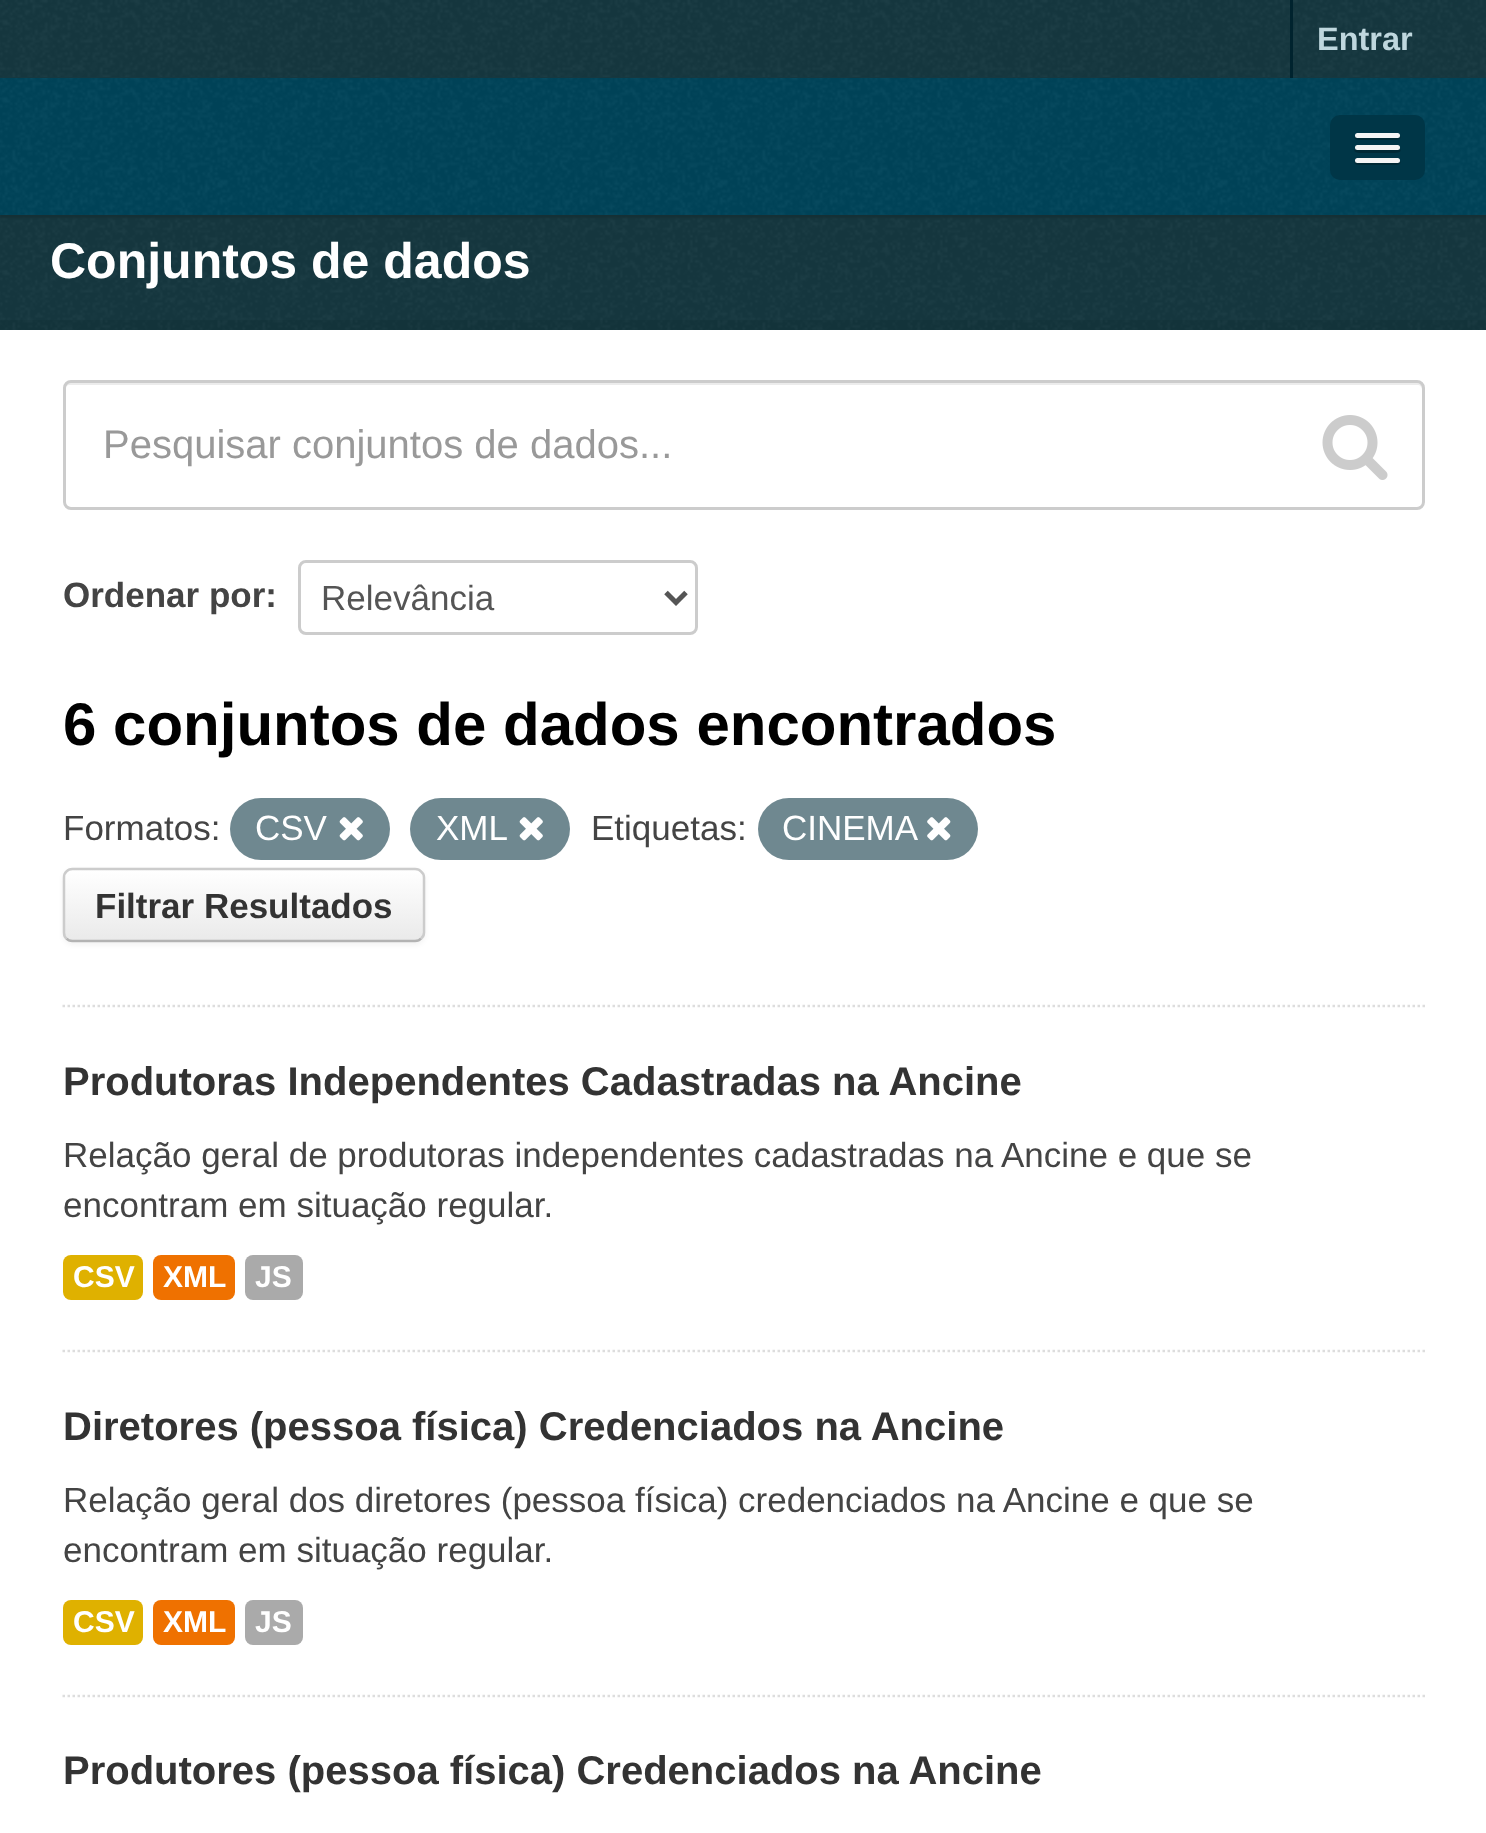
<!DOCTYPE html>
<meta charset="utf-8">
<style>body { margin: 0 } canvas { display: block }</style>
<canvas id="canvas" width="1486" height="1833"></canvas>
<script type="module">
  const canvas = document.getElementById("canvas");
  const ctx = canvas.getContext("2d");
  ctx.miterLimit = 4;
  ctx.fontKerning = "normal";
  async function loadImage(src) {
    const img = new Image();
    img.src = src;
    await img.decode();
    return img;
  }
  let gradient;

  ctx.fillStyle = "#163840";
  ctx.fillRect(0, 0, 1486, 1833);
  ctx.drawImage(await loadImage("img1.png"), 0, 215, 1486, 115);
  ctx.drawImage(await loadImage("img2.png"), 0, 0, 1486, 77);
  ctx.fillStyle = "#00232e";
  ctx.fillRect(1290, 0, 3, 78);
  ctx.font = "bold 32.5px Liberation Sans";
  ctx.fillStyle = "#bfd7de";
  ctx.fillText("Entrar", 1317, 50);
  ctx.fillStyle = "#153035";
  ctx.filter = "blur(1px)";
  ctx.beginPath();
  ctx.rect(0, 80, 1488, 138);
  ctx.fill();
  ctx.filter = "none";
  ctx.fillStyle = "#00455a";
  ctx.fillRect(0, 78, 1486, 137);
  ctx.drawImage(await loadImage("img3.png"), 0, 78, 1486, 137);
  ctx.fillStyle = "#003647";
  ctx.beginPath();
  ctx.roundRect(1330, 115, 95, 65, 10);
  ctx.fill();
  ctx.fillStyle = "#002935";
  ctx.beginPath();
  ctx.moveTo(1355, 136);
  ctx.bezierCurveTo(1352, 141, 1364, 140, 1364, 140);
  ctx.lineTo(1391, 140);
  ctx.bezierCurveTo(1391, 140, 1403, 141, 1400, 136);
  ctx.bezierCurveTo(1399, 137, 1398, 138, 1398, 138);
  ctx.lineTo(1358, 138);
  ctx.bezierCurveTo(1357, 138, 1356, 137, 1355, 136);
  ctx.closePath();
  ctx.fill();
  ctx.fillStyle = "#f5f5f5";
  ctx.beginPath();
  ctx.roundRect(1355, 133, 45, 5, 2.5);
  ctx.fill();
  ctx.fillStyle = "#002935";
  ctx.beginPath();
  ctx.moveTo(1355, 149);
  ctx.bezierCurveTo(1352, 153, 1360, 153, 1364, 153);
  ctx.lineTo(1391, 153);
  ctx.bezierCurveTo(1395, 153, 1403, 153, 1400, 149);
  ctx.lineTo(1398, 150);
  ctx.lineTo(1357, 150);
  ctx.closePath();
  ctx.fill();
  ctx.fillStyle = "#f5f5f5";
  ctx.beginPath();
  ctx.roundRect(1355, 145, 45, 5, 2.5);
  ctx.fill();
  ctx.fillStyle = "#002935";
  ctx.beginPath();
  ctx.moveTo(1355, 161);
  ctx.bezierCurveTo(1352, 166, 1364, 165, 1364, 165);
  ctx.lineTo(1391, 165);
  ctx.bezierCurveTo(1391, 165, 1403, 166, 1400, 161);
  ctx.bezierCurveTo(1399, 162, 1398, 162, 1398, 162);
  ctx.lineTo(1358, 162);
  ctx.bezierCurveTo(1357, 162, 1356, 162, 1355, 161);
  ctx.closePath();
  ctx.fill();
  ctx.fillStyle = "#f5f5f5";
  ctx.beginPath();
  ctx.roundRect(1355, 158, 45, 5, 2.5);
  ctx.fill();
  ctx.font = "bold 50px Liberation Sans";
  ctx.fillStyle = "#ffffff";
  ctx.fillText("Conjuntos de dados", 50, 278);
  ctx.strokeStyle = "rgba(0, 0, 0, 0.05)";
  ctx.lineWidth = 10;
  ctx.strokeRect(-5, 325, 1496, 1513);
  ctx.fillRect(0, 330, 1486, 1503);
  ctx.beginPath();
  ctx.moveTo(62.5, 1006);
  ctx.lineTo(1425, 1006);
  ctx.strokeStyle = "#dddddd";
  ctx.lineWidth = 2.5;
  ctx.setLineDash([2.5, 2.5]);
  ctx.stroke();
  ctx.fillStyle = "#ececec";
  ctx.beginPath();
  ctx.moveTo(70, 385);
  ctx.lineTo(1418, 385);
  ctx.bezierCurveTo(1420, 385, 1422, 387, 1422, 390);
  ctx.lineTo(1422, 506);
  ctx.bezierCurveTo(1423, 505, 1423, 504, 1423, 503);
  ctx.lineTo(1423, 388);
  ctx.bezierCurveTo(1423, 385, 1421, 383, 1418, 383);
  ctx.lineTo(70, 383);
  ctx.bezierCurveTo(67, 383, 65, 385, 65, 388);
  ctx.lineTo(65, 390);
  ctx.bezierCurveTo(65, 387, 67, 385, 70, 385);
  ctx.closePath();
  ctx.fill();
  ctx.beginPath();
  ctx.roundRect(64.5, 381.5, 1359, 127, 6.5);
  ctx.strokeStyle = "#cccccc";
  ctx.lineWidth = 3;
  ctx.setLineDash([]);
  ctx.stroke();
  ctx.font = "40px Liberation Sans";
  ctx.fillStyle = "#999999";
  ctx.fillText("Pesquisar conjuntos de dados...", 103, 458);
  ctx.drawImage(await loadImage("img4.png"), 1322, 415, 66, 65);
  ctx.font = "bold 35px Liberation Sans";
  ctx.fillStyle = "#444444";
  ctx.fillText("Ordenar por:", 63, 607);
  ctx.beginPath();
  ctx.roundRect(299.5, 561.5, 397, 72, 6.5);
  ctx.stroke();
  ctx.beginPath();
  ctx.moveTo(666, 592.5);
  ctx.lineTo(676, 602.5);
  ctx.lineTo(686, 592.5);
  ctx.strokeStyle = "#555555";
  ctx.lineWidth = 5;
  ctx.stroke();
  ctx.font = "35px Liberation Sans";
  ctx.fillStyle = "#555555";
  ctx.fillText("Relevância", 321, 610);
  ctx.font = "bold 60px Liberation Sans";
  ctx.fillStyle = "#000000";
  ctx.fillText("6 conjuntos de dados encontrados", 63, 745);
  ctx.font = "35px Liberation Sans";
  ctx.fillStyle = "#444444";
  ctx.fillText("Formatos:", 63, 840);
  ctx.fillStyle = "#6f8890";
  ctx.beginPath();
  ctx.roundRect(230, 798, 160, 62, 31);
  ctx.fill();
  ctx.fillStyle = "#ffffff";
  ctx.fillText("CSV", 255, 840);
  ctx.drawImage(await loadImage("img5.png"), 339, 817, 24, 24);
  ctx.fillStyle = "#6f8890";
  ctx.beginPath();
  ctx.roundRect(410, 798, 160, 62, 31);
  ctx.fill();
  ctx.fillStyle = "#ffffff";
  ctx.fillText("XML", 436, 840);
  ctx.drawImage(await loadImage("img5.png"), 519, 817, 24, 24);
  ctx.fillStyle = "#444444";
  ctx.fillText("Etiquetas:", 591, 840);
  ctx.fillStyle = "#6f8890";
  ctx.beginPath();
  ctx.roundRect(758, 798, 220, 62, 31);
  ctx.fill();
  ctx.fillStyle = "#ffffff";
  ctx.fillText("CINEMA", 782, 840);
  ctx.drawImage(await loadImage("img6.png"), 927, 817, 24, 24);
  ctx.fillStyle = "rgba(0, 0, 0, 0.05)";
  ctx.filter = "blur(2.5px)";
  ctx.beginPath();
  ctx.roundRect(63, 870, 362, 75, 10);
  ctx.fill();
  ctx.filter = "none";
  ctx.fillStyle = "#f7f7f7";
  ctx.beginPath();
  ctx.roundRect(63, 868, 362, 75, 10);
  ctx.fill();
  ctx.save();
  ctx.beginPath();
  ctx.roundRect(63, 868, 362, 75, 10);
  ctx.clip();
  gradient = ctx.createLinearGradient(244, 870, 244, 940);
  gradient.addColorStop(0, "#ffffff");
  gradient.addColorStop(1, "#eaeaea");
  ctx.fillStyle = gradient;
  ctx.fillRect(63, 870, 362, 70);
  ctx.restore();
  ctx.fillStyle = "rgba(255, 255, 255, 0.2)";
  ctx.beginPath();
  ctx.moveTo(72, 872);
  ctx.lineTo(415, 872);
  ctx.bezierCurveTo(419, 872, 422, 876, 422, 880);
  ctx.lineTo(422, 936);
  ctx.bezierCurveTo(423, 935, 423, 933, 423, 932);
  ctx.lineTo(423, 878);
  ctx.bezierCurveTo(423, 874, 419, 870, 415, 870);
  ctx.lineTo(73, 870);
  ctx.bezierCurveTo(69, 870, 65, 874, 65, 878);
  ctx.lineTo(65, 880);
  ctx.bezierCurveTo(65, 876, 68, 872, 72, 872);
  ctx.closePath();
  ctx.fill();
  ctx.beginPath();
  ctx.moveTo(421, 938.5);
  ctx.bezierCurveTo(419.5, 940.5, 417.5, 941, 415, 941);
  ctx.lineTo(72.5, 941);
  ctx.bezierCurveTo(70, 941, 68, 940.5, 66.5, 938.5);
  ctx.strokeStyle = "#b3b3b3";
  ctx.lineWidth = 2.5;
  ctx.stroke();
  ctx.beginPath();
  ctx.moveTo(66.5, 938.5);
  ctx.bezierCurveTo(64.5, 937, 64, 935, 64, 932.5);
  ctx.lineTo(64, 877.5);
  ctx.bezierCurveTo(64, 875, 64.5, 873, 66.5, 871.5);
  ctx.bezierCurveTo(68, 869.5, 70, 869, 72.5, 869);
  ctx.lineTo(415, 869);
  ctx.bezierCurveTo(417.5, 869, 419.5, 869.5, 421, 871.5);
  ctx.bezierCurveTo(423, 873, 424, 875, 424, 877.5);
  ctx.lineTo(424, 932.5);
  ctx.bezierCurveTo(424, 935, 423, 937, 421, 938.5);
  ctx.strokeStyle = "#cccccc";
  ctx.stroke();
  ctx.font = "bold 35px Liberation Sans";
  ctx.fillStyle = "#333333";
  ctx.fillText("Filtrar Resultados", 95, 918);
  ctx.beginPath();
  ctx.moveTo(62.5, 1351);
  ctx.lineTo(1425, 1351);
  ctx.strokeStyle = "#dddddd";
  ctx.setLineDash([2.5, 2.5]);
  ctx.stroke();
  ctx.font = "bold 40px Liberation Sans";
  ctx.fillText("Produtoras Independentes Cadastradas na Ancine", 63, 1095);
  ctx.font = "35px Liberation Sans";
  ctx.fillStyle = "#444444";
  ctx.fillText("Relação geral de produtoras independentes cadastradas na Ancine e que se", 63, 1167);
  ctx.fillText("encontram em situação regular.", 63, 1217);
  ctx.fillStyle = "#dfb100";
  ctx.beginPath();
  ctx.roundRect(63, 1255, 80, 45, 8);
  ctx.fill();
  ctx.font = "bold 30px Liberation Sans";
  ctx.fillStyle = "#ffffff";
  ctx.fillText("CSV", 73, 1287);
  ctx.fillStyle = "#ef7100";
  ctx.beginPath();
  ctx.roundRect(153, 1255, 82, 45, 8);
  ctx.fill();
  ctx.fillStyle = "#ffffff";
  ctx.fillText("XML", 163, 1287);
  ctx.fillStyle = "#aaaaaa";
  ctx.beginPath();
  ctx.roundRect(245, 1255, 58, 45, 8);
  ctx.fill();
  ctx.fillStyle = "#ffffff";
  ctx.fillText("JS", 255, 1287);
  ctx.beginPath();
  ctx.moveTo(62.5, 1696);
  ctx.lineTo(1425, 1696);
  ctx.stroke();
  ctx.font = "bold 40px Liberation Sans";
  ctx.fillStyle = "#333333";
  ctx.fillText("Diretores (pessoa física) Credenciados na Ancine", 63, 1440);
  ctx.font = "35px Liberation Sans";
  ctx.fillStyle = "#444444";
  ctx.fillText("Relação geral dos diretores (pessoa física) credenciados na Ancine e que se", 63, 1512);
  ctx.fillText("encontram em situação regular.", 63, 1562);
  ctx.fillStyle = "#dfb100";
  ctx.beginPath();
  ctx.roundRect(63, 1600, 80, 45, 8);
  ctx.fill();
  ctx.font = "bold 30px Liberation Sans";
  ctx.fillStyle = "#ffffff";
  ctx.fillText("CSV", 73, 1632);
  ctx.fillStyle = "#ef7100";
  ctx.beginPath();
  ctx.roundRect(153, 1600, 82, 45, 8);
  ctx.fill();
  ctx.fillStyle = "#ffffff";
  ctx.fillText("XML", 163, 1632);
  ctx.fillStyle = "#aaaaaa";
  ctx.beginPath();
  ctx.roundRect(245, 1600, 58, 45, 8);
  ctx.fill();
  ctx.fillStyle = "#ffffff";
  ctx.fillText("JS", 255, 1632);
  ctx.font = "bold 40px Liberation Sans";
  ctx.fillStyle = "#333333";
  ctx.fillText("Produtores (pessoa física) Credenciados na Ancine", 63, 1784);
</script>
